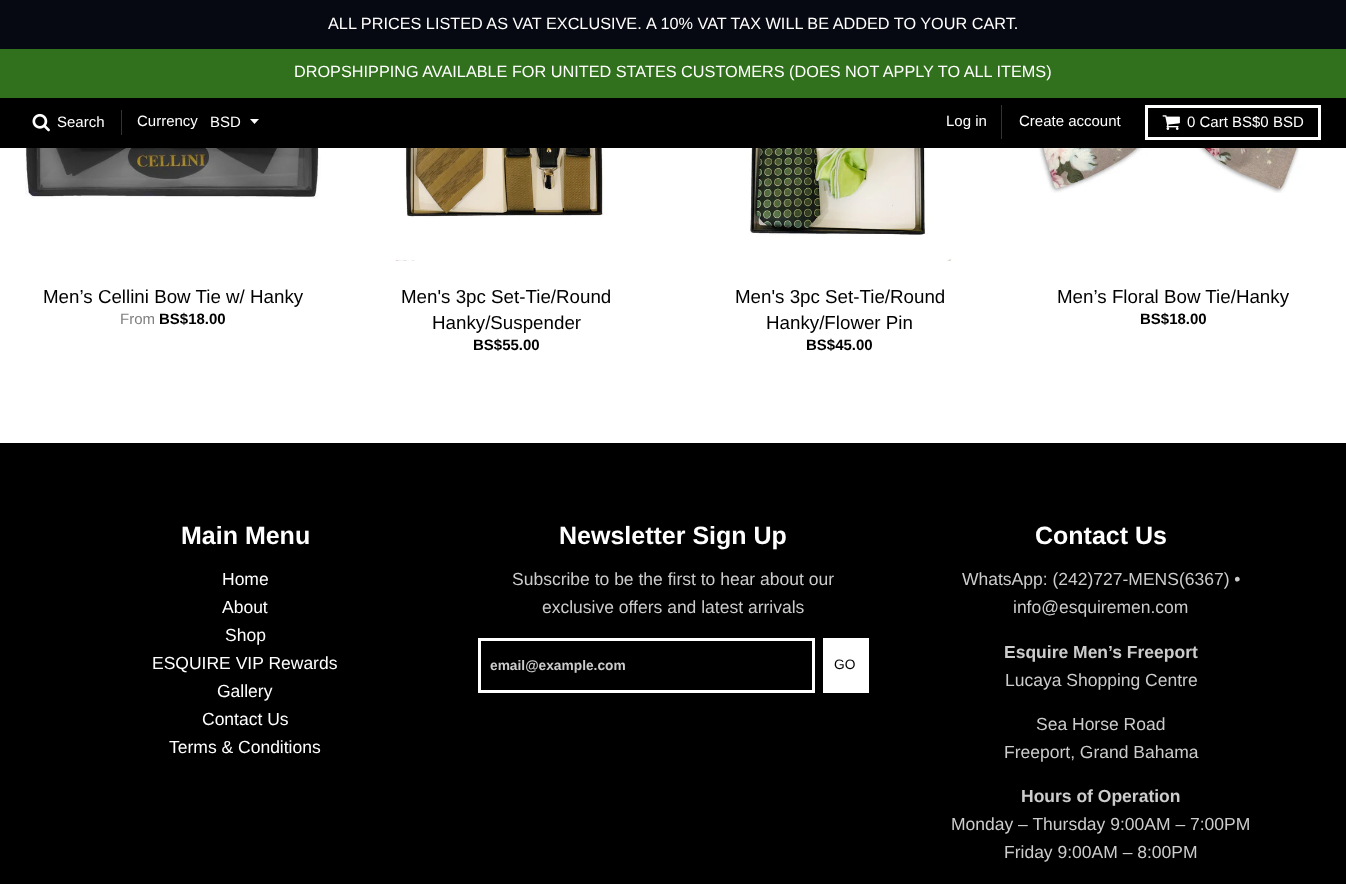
<!DOCTYPE html>
<meta charset="utf-8">
<style>body { margin: 0 } canvas { display: block }</style>
<canvas id="canvas" width="1346" height="884"></canvas>
<script type="module">
  const canvas = document.getElementById("canvas");
  const ctx = canvas.getContext("2d");
  ctx.miterLimit = 4;
  ctx.fontKerning = "normal";
  async function loadImage(src) {
    const img = new Image();
    img.src = src;
    await img.decode();
    return img;
  }

  ctx.fillStyle = "#ffffff";
  ctx.fillRect(0, 0, 1346, 884);
  ctx.fillStyle = "#070912";
  ctx.fillRect(0, 0, 1346, 49);
  ctx.font = "16.25px Liberation Sans";
  ctx.fillStyle = "#ffffff";
  ctx.fillText("ALL PRICES LISTED AS VAT EXCLUSIVE.", 328, 29);
  ctx.fillText("A 10% VAT TAX WILL BE ADDED TO YOUR CART.", 646, 29);
  ctx.fillStyle = "#31701c";
  ctx.fillRect(0, 49, 1346, 49);
  ctx.fillStyle = "#ffffff";
  ctx.fillText("DROPSHIPPING AVAILABLE FOR UNITED STATES CUSTOMERS (DOES NOT APPLY TO ALL ITEMS)", 294, 77);
  ctx.fillStyle = "#000000";
  ctx.fillRect(0, 98, 1346, 50);
  ctx.drawImage(await loadImage("img1.png"), 32, 113, 18, 19);
  ctx.font = "15px Liberation Sans";
  ctx.fillStyle = "#ffffff";
  ctx.fillText("Search", 57, 127);
  ctx.fillStyle = "#333333";
  ctx.fillRect(121, 110, 1, 25);
  ctx.fillStyle = "#ffffff";
  ctx.fillText("Currency", 137, 126);
  ctx.beginPath();
  ctx.moveTo(250, 119);
  ctx.lineTo(254.5, 124);
  ctx.lineTo(259, 119);
  ctx.closePath();
  ctx.fill();
  ctx.fillText("BSD", 210, 127);
  ctx.fillStyle = "#333333";
  ctx.fillRect(1001, 105, 1, 34);
  ctx.fillStyle = "#ffffff";
  ctx.fillText("Log in", 946, 126);
  ctx.fillText("Create account", 1019, 126);
  ctx.strokeStyle = "#ffffff";
  ctx.lineWidth = 3;
  ctx.strokeRect(1146.5, 106.5, 173, 32);
  ctx.drawImage(await loadImage("img2.png"), 1162, 115, 18, 15);
  ctx.fillText("0 Cart BS$0 BSD", 1187, 127);
  ctx.drawImage(await loadImage("img3.png"), 25, 148, 296, 51);
  ctx.font = "18.75px Liberation Sans";
  ctx.fillStyle = "#000000";
  ctx.fillText("Men’s Cellini Bow Tie w/ Hanky", 43, 303);
  ctx.font = "15px Liberation Sans";
  ctx.fillStyle = "#7f7f7f";
  ctx.fillText("From", 120, 324);
  ctx.font = "bold 15px Liberation Sans";
  ctx.fillStyle = "#000000";
  ctx.fillText("BS$18.00", 159, 324);
  ctx.drawImage(await loadImage("img4.png"), 395, 148, 210, 113);
  ctx.font = "18.75px Liberation Sans";
  ctx.fillText("Men's 3pc Set-Tie/Round", 401, 303);
  ctx.fillText("Hanky/Suspender", 432, 329);
  ctx.font = "bold 15px Liberation Sans";
  ctx.fillText("BS$55.00", 473, 350);
  ctx.drawImage(await loadImage("img5.png"), 749, 148, 203, 113);
  ctx.font = "18.75px Liberation Sans";
  ctx.fillText("Men's 3pc Set-Tie/Round", 735, 303);
  ctx.fillText("Hanky/Flower Pin", 766, 329);
  ctx.font = "bold 15px Liberation Sans";
  ctx.fillText("BS$45.00", 806, 350);
  ctx.drawImage(await loadImage("img6.png"), 1035, 148, 275, 45);
  ctx.font = "18.75px Liberation Sans";
  ctx.fillText("Men’s Floral Bow Tie/Hanky", 1057, 303);
  ctx.font = "bold 15px Liberation Sans";
  ctx.fillText("BS$18.00", 1140, 324);
  ctx.fillRect(0, 443, 1346, 441);
  ctx.font = "bold 25px Liberation Sans";
  ctx.fillStyle = "#ffffff";
  ctx.fillText("Main Menu", 181, 544);
  ctx.font = "17.5px Liberation Sans";
  ctx.fillText("Home", 222, 585);
  ctx.fillText("About", 222, 613);
  ctx.fillText("Shop", 225, 641);
  ctx.fillText("ESQUIRE VIP Rewards", 152, 669);
  ctx.fillText("Gallery", 217, 697);
  ctx.fillText("Contact Us", 202, 725);
  ctx.fillText("Terms & Conditions", 169, 753);
  ctx.font = "bold 25px Liberation Sans";
  ctx.fillText("Newsletter Sign Up", 559, 544);
  ctx.font = "17.5px Liberation Sans";
  ctx.fillStyle = "#cccccc";
  ctx.fillText("Subscribe to be the first to hear about our", 512, 585);
  ctx.fillText("exclusive offers and latest arrivals", 542, 613);
  ctx.strokeRect(479.5, 639.5, 334, 52);
  ctx.font = "bold 13.75px Liberation Sans";
  ctx.fillText("email@example.com", 490, 670);
  ctx.fillStyle = "#ffffff";
  ctx.fillRect(823, 638, 46, 55);
  ctx.font = "13.75px Liberation Sans";
  ctx.fillStyle = "#000000";
  ctx.fillText("GO", 834, 669);
  ctx.font = "bold 25px Liberation Sans";
  ctx.fillStyle = "#ffffff";
  ctx.fillText("Contact Us", 1035, 544);
  ctx.font = "17.5px Liberation Sans";
  ctx.fillStyle = "#cccccc";
  ctx.fillText("WhatsApp: (242)727-MENS(6367) •", 962, 585);
  ctx.fillText("info@esquiremen.com", 1013, 613);
  ctx.font = "bold 17.5px Liberation Sans";
  ctx.fillText("Esquire Men’s Freeport", 1004, 658);
  ctx.font = "17.5px Liberation Sans";
  ctx.fillText("Lucaya Shopping Centre", 1005, 686);
  ctx.fillText("Sea Horse Road", 1036, 730);
  ctx.fillText("Freeport, Grand Bahama", 1004, 758);
  ctx.font = "bold 17.5px Liberation Sans";
  ctx.fillText("Hours of Operation", 1021, 802);
  ctx.font = "17.5px Liberation Sans";
  ctx.fillText("Monday – Thursday 9:00AM – 7:00PM", 951, 830);
  ctx.fillText("Friday 9:00AM – 8:00PM", 1004, 858);
</script>
